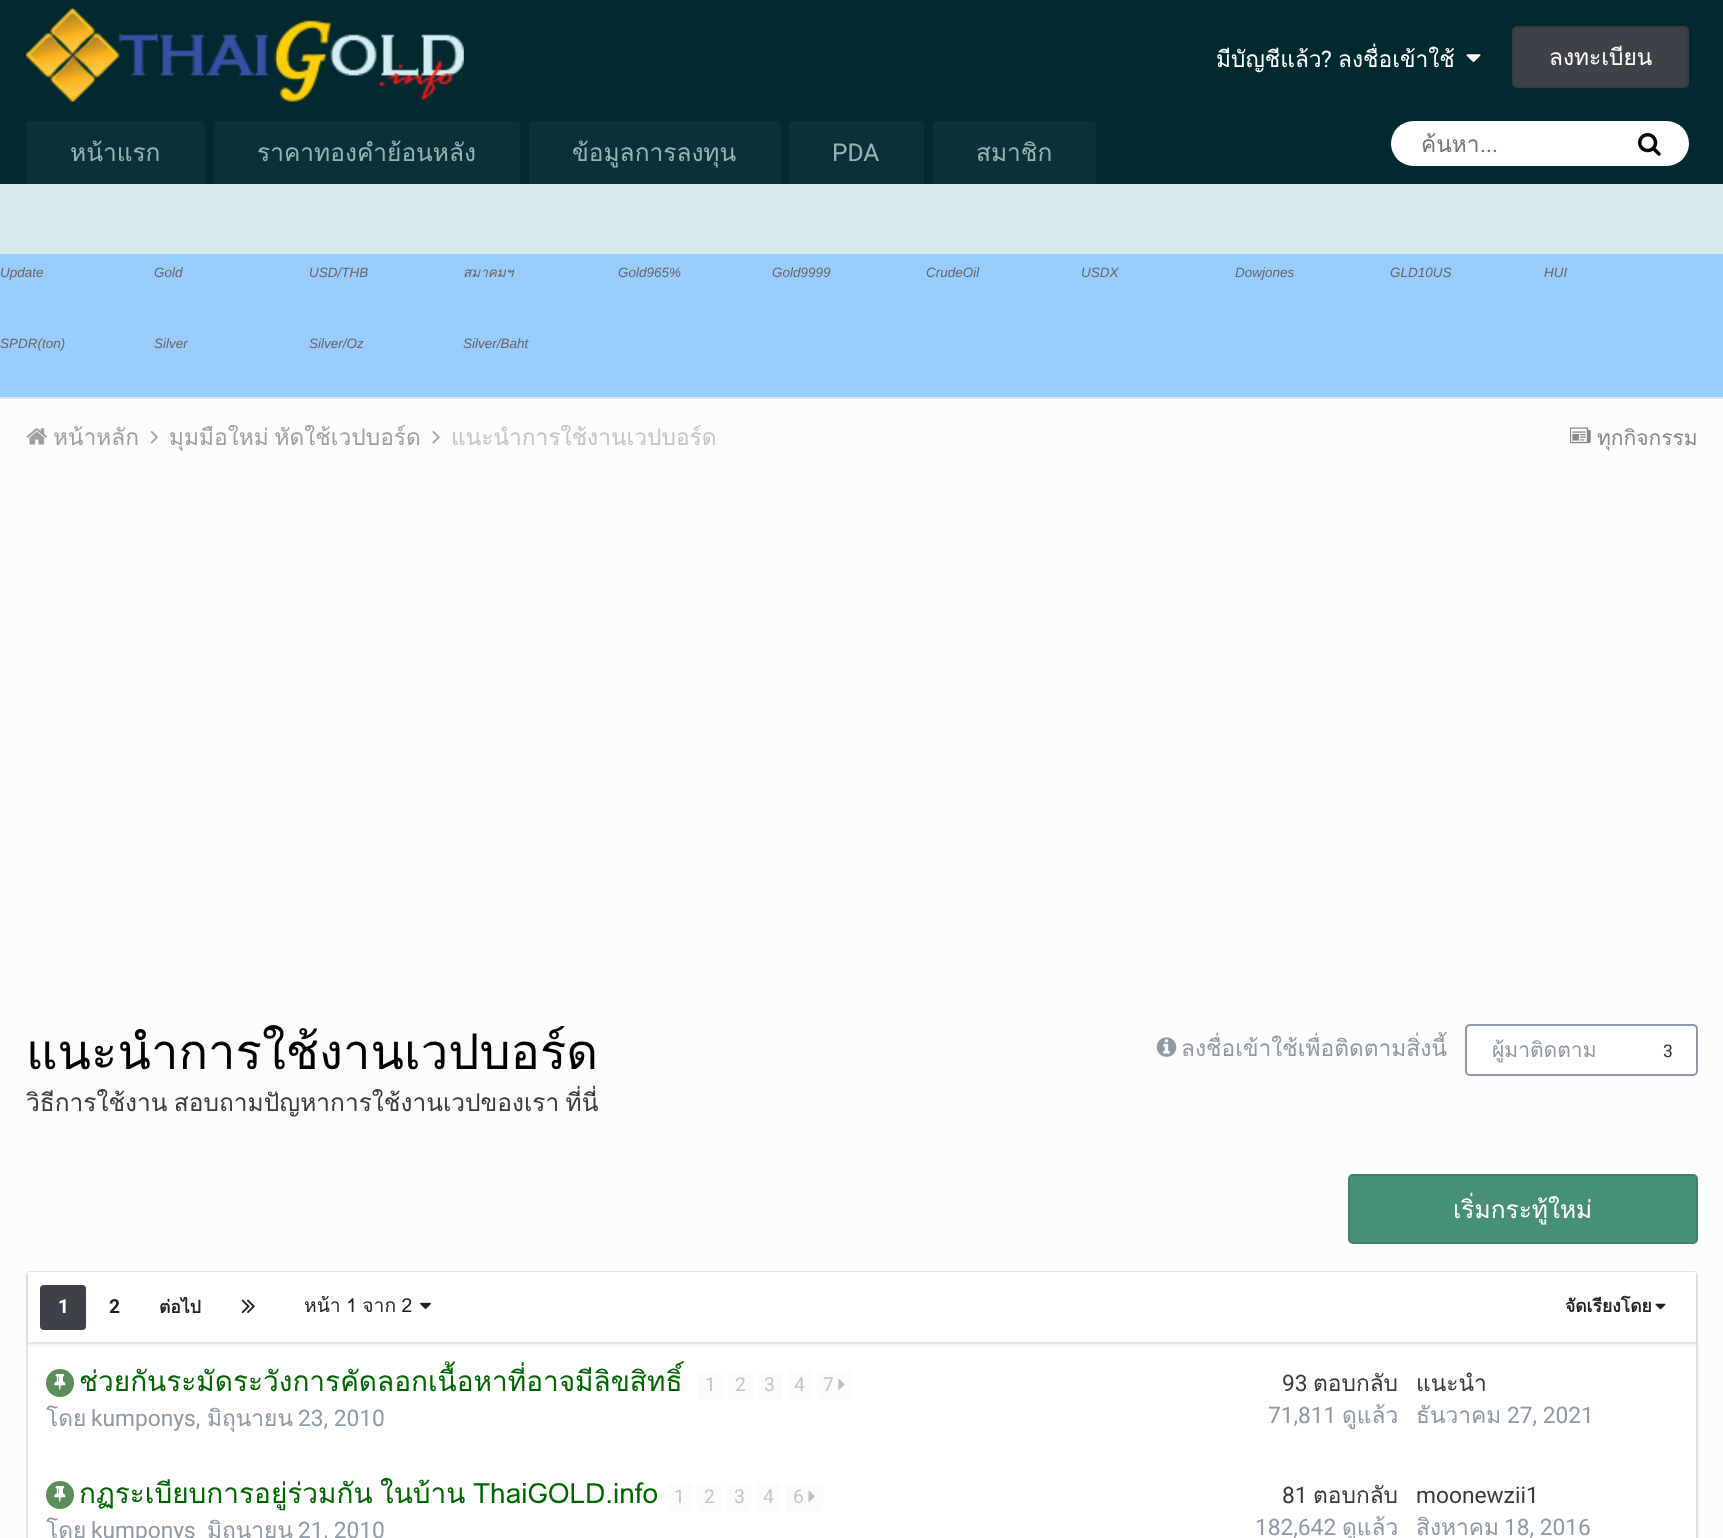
<!DOCTYPE html>
<meta charset="utf-8">
<style>body { margin: 0 } canvas { display: block }</style>
<canvas id="canvas" width="1723" height="1538"></canvas>
<script type="module">
  const canvas = document.getElementById("canvas");
  const ctx = canvas.getContext("2d");
  ctx.miterLimit = 4;
  ctx.fontKerning = "normal";
  async function loadImage(src) {
    const img = new Image();
    img.src = src;
    await img.decode();
    return img;
  }

  ctx.fillStyle = "#fcfcfc";
  ctx.fillRect(0, 0, 1723, 1538);
  ctx.fillStyle = "#e3e3e3";
  ctx.fillRect(0, 397, 1723, 2);
  ctx.fillStyle = "#002a30";
  ctx.fillRect(0, 0, 1723, 184);
  ctx.drawImage(await loadImage("img1.png"), 26, 8, 438, 94);
  ctx.font = "22.75px Loma";
  ctx.fillStyle = "#ffffff";
  ctx.fillText("มีบัญชีแล้ว", 1216, 67);
  ctx.font = "22.75px Roboto";
  ctx.fillText("?", 1321, 67);
  ctx.font = "22.75px Loma";
  ctx.fillText("ลงชื่อเข้าใช้", 1338, 67);
  ctx.drawImage(await loadImage("img2.png"), 1466, 54, 15, 9);
  ctx.fillStyle = "#3e4148";
  ctx.beginPath();
  ctx.roundRect(1512, 26, 177, 62, 5);
  ctx.fill();
  ctx.beginPath();
  ctx.roundRect(1513, 27, 175, 60, 4);
  ctx.strokeStyle = "rgba(0, 0, 0, 0.1)";
  ctx.lineWidth = 2;
  ctx.stroke();
  ctx.fillStyle = "#ffffff";
  ctx.fillText("ลงทะเบียน", 1549, 65);
  ctx.fillStyle = "#d6e9ec";
  ctx.fillRect(0, 184, 1723, 70);
  ctx.fillStyle = "#093238";
  ctx.beginPath();
  ctx.roundRect(26, 121, 179, 63, [4, 4, 0, 0]);
  ctx.fill();
  ctx.font = "24.5px Loma";
  ctx.fillStyle = "#99b2b6";
  ctx.fillText("หน้าแรก", 70, 161);
  ctx.fillStyle = "#093238";
  ctx.beginPath();
  ctx.roundRect(214, 121, 306, 63, [4, 4, 0, 0]);
  ctx.fill();
  ctx.fillStyle = "#99b2b6";
  ctx.fillText("ราคาทองคำย้อนหลัง", 257, 161);
  ctx.fillStyle = "#093238";
  ctx.beginPath();
  ctx.roundRect(529, 121, 252, 63, [4, 4, 0, 0]);
  ctx.fill();
  ctx.fillStyle = "#99b2b6";
  ctx.fillText("ข้อมูลการลงทุน", 572, 161);
  ctx.fillStyle = "#093238";
  ctx.beginPath();
  ctx.roundRect(789, 121, 135, 63, [4, 4, 0, 0]);
  ctx.fill();
  ctx.font = "24.5px Roboto";
  ctx.fillStyle = "#99b2b6";
  ctx.fillText("PDA", 832, 161);
  ctx.fillStyle = "#093238";
  ctx.beginPath();
  ctx.roundRect(933, 121, 163, 63, [4, 4, 0, 0]);
  ctx.fill();
  ctx.font = "24.5px Loma";
  ctx.fillStyle = "#99b2b6";
  ctx.fillText("สมาชิก", 976, 161);
  ctx.fillStyle = "#ffffff";
  ctx.beginPath();
  ctx.roundRect(1391, 121, 298, 45, 22.5);
  ctx.fill();
  ctx.save();
  ctx.beginPath();
  ctx.rect(1421, 126, 208, 37);
  ctx.clip();
  ctx.font = "22.75px Loma";
  ctx.fillStyle = "#757575";
  ctx.fillText("ค้นหา", 1421, 152);
  ctx.restore();
  ctx.font = "22.75px Roboto";
  ctx.fillStyle = "#757575";
  ctx.fillText("...", 1480, 152);
  ctx.drawImage(await loadImage("img3.png"), 1638, 133, 23, 23);
  ctx.fillStyle = "#99ccff";
  ctx.fillRect(0, 254, 1723, 143);
  ctx.font = "italic 13.5px Liberation Sans";
  ctx.fillStyle = "#666666";
  ctx.fillText("Update", 0, 277);
  ctx.fillText("Gold", 154, 277);
  ctx.fillText("USD/THB", 309, 277);
  ctx.font = "italic 13.5px Loma";
  ctx.fillText("สมาคมฯ", 463, 277);
  ctx.font = "italic 13.5px Liberation Sans";
  ctx.fillText("Gold965%", 618, 277);
  ctx.fillText("Gold9999", 772, 277);
  ctx.fillText("CrudeOil", 926, 277);
  ctx.fillText("USDX", 1081, 277);
  ctx.fillText("Dowjones", 1235, 277);
  ctx.fillText("GLD10US", 1390, 277);
  ctx.fillText("HUI", 1544, 277);
  ctx.fillText("SPDR(ton)", 0, 348);
  ctx.fillText("Silver", 154, 348);
  ctx.fillText("Silver/Oz", 309, 348);
  ctx.fillText("Silver/Baht", 463, 348);
  ctx.drawImage(await loadImage("img4.png"), 26, 428, 21, 17);
  ctx.font = "22.75px Loma";
  ctx.fillStyle = "#9f9f9f";
  ctx.fillText("หน้าหลัก", 53, 445);
  ctx.drawImage(await loadImage("img5.png"), 150, 430, 8, 14);
  ctx.save();
  ctx.beginPath();
  ctx.rect(170, 425, 275, 27);
  ctx.clip();
  ctx.wordSpacing = "-2px";
  ctx.fillText("มุมมือใหม่ หัดใช้เวปบอร์ด", 169, 445);
  ctx.restore();
  ctx.drawImage(await loadImage("img6.png"), 432, 430, 8, 14);
  ctx.save();
  ctx.beginPath();
  ctx.rect(452, 425, 264, 27);
  ctx.clip();
  ctx.fillStyle = "#c4c4c4";
  ctx.fillText("แนะนำการใช้งานเวปบอร์ด", 451, 445);
  ctx.restore();
  ctx.drawImage(await loadImage("img7.png"), 1570, 427, 21, 17);
  ctx.font = "21px Loma";
  ctx.fillStyle = "#85898c";
  ctx.fillText("ทุกกิจกรรม", 1597, 445);
  ctx.font = "49px Loma";
  ctx.fillStyle = "#000000";
  ctx.fillText("แนะนำการใช้งานเวปบอร์ด", 26, 1069);
  ctx.drawImage(await loadImage("img8.png"), 1156, 1037, 21, 20);
  ctx.font = "22.75px Loma";
  ctx.fillStyle = "#8d9aa6";
  ctx.fillText("ลงชื่อเข้าใช้เพื่อติดตามสิ่งนี้", 1181, 1056);
  ctx.fillStyle = "#ffffff";
  ctx.beginPath();
  ctx.roundRect(1466, 1025, 231, 50, 4);
  ctx.fill();
  ctx.strokeStyle = "#8d9aa6";
  ctx.stroke();
  ctx.font = "21px Loma";
  ctx.fillStyle = "#8d9aa6";
  ctx.fillText("ผู้มาติดตาม", 1492, 1057);
  ctx.font = "17.5px Roboto";
  ctx.fillStyle = "#333333";
  ctx.fillText("3", 1663, 1057);
  ctx.wordSpacing = "-2px";
  ctx.font = "24.5px Loma";
  ctx.fillStyle = "#353c41";
  ctx.fillText("วิธีการใช้งาน สอบถามปัญหาการใช้งานเวปของเรา ที่นี่", 26, 1111);
  ctx.fillStyle = "#478f79";
  ctx.beginPath();
  ctx.roundRect(1348, 1174, 350, 70, 5);
  ctx.fill();
  ctx.beginPath();
  ctx.roundRect(1349, 1175, 348, 68, 4);
  ctx.strokeStyle = "rgba(0, 0, 0, 0.1)";
  ctx.stroke();
  ctx.wordSpacing = "0px";
  ctx.fillStyle = "#ffffff";
  ctx.fillText("เริ่มกระทู้ใหม่", 1453, 1218);
  ctx.beginPath();
  ctx.roundRect(27, 1272, 1670, 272, 4);
  ctx.fill();
  ctx.strokeStyle = "#e0e0e0";
  ctx.stroke();
  ctx.fillStyle = "rgba(0, 0, 0, 0.05)";
  ctx.filter = "blur(1px)";
  ctx.beginPath();
  ctx.rect(28, 1274, 1668, 72);
  ctx.fill();
  ctx.filter = "none";
  ctx.fillStyle = "#ffffff";
  ctx.fillRect(28, 1272, 1668, 70);
  ctx.fillStyle = "#e6e6e6";
  ctx.fillRect(28, 1342, 1668, 2);
  ctx.fillStyle = "#3e4148";
  ctx.beginPath();
  ctx.roundRect(40, 1285, 46, 45, 4);
  ctx.fill();
  ctx.font = "bold 19.25px Roboto";
  ctx.fillStyle = "#ffffff";
  ctx.fillText("1", 58, 1313);
  ctx.fillStyle = "#222222";
  ctx.fillText("2", 109, 1313);
  ctx.font = "bold 17.5px Loma";
  ctx.fillText("ต่อไป", 159, 1313);
  ctx.drawImage(await loadImage("img9.png"), 241, 1299, 14, 15);
  ctx.wordSpacing = "-1px";
  ctx.font = "19.25px Loma";
  ctx.fillText("หน้า 1 จาก 2", 304, 1312);
  ctx.drawImage(await loadImage("img10.png"), 420, 1302, 11, 7);
  ctx.wordSpacing = "0px";
  ctx.font = "bold 17.5px Loma";
  ctx.fillText("จัดเรียงโดย", 1565, 1312);
  ctx.drawImage(await loadImage("img11.png"), 1655, 1303, 11, 7);
  ctx.fillStyle = "#598f5b";
  ctx.beginPath();
  ctx.arc(60, 1383, 14, 0, Math.PI * 2);
  ctx.fill();
  ctx.drawImage(await loadImage("img12.png"), 54, 1374, 12, 17);
  ctx.font = "28px Loma";
  ctx.fillStyle = "#006600";
  ctx.fillText("ช่วยกันระมัดระวังการคัดลอกเนื้อหาที่อาจมีลิขสิทธิ์", 79, 1391);
  ctx.fillStyle = "#fbfbfb";
  ctx.beginPath();
  ctx.roundRect(698, 1372, 25, 28, 4);
  ctx.fill();
  ctx.font = "19.25px Roboto";
  ctx.fillStyle = "#c4c4c4";
  ctx.fillText("1", 705, 1391);
  ctx.fillStyle = "#fbfbfb";
  ctx.beginPath();
  ctx.roundRect(728, 1372, 25, 28, 4);
  ctx.fill();
  ctx.fillStyle = "#c4c4c4";
  ctx.fillText("2", 735, 1391);
  ctx.fillStyle = "#fbfbfb";
  ctx.beginPath();
  ctx.roundRect(758, 1372, 24, 28, 4);
  ctx.fill();
  ctx.fillStyle = "#c4c4c4";
  ctx.fillText("3", 764, 1391);
  ctx.fillStyle = "#fbfbfb";
  ctx.beginPath();
  ctx.roundRect(788, 1372, 24, 28, 4);
  ctx.fill();
  ctx.fillStyle = "#c4c4c4";
  ctx.fillText("4", 794, 1391);
  ctx.fillStyle = "#fbfbfb";
  ctx.beginPath();
  ctx.roundRect(817, 1372, 35, 28, 4);
  ctx.fill();
  ctx.fillStyle = "#c4c4c4";
  ctx.fillText("7", 823, 1391);
  ctx.drawImage(await loadImage("img13.png"), 838, 1379, 7, 11);
  ctx.font = "22.75px Loma";
  ctx.fillStyle = "#8d9aa6";
  ctx.fillText("โดย", 46, 1426);
  ctx.font = "22.75px Roboto";
  ctx.fillText("kumponys,", 91, 1426);
  ctx.font = "22.75px Loma";
  ctx.fillText("มิถุนายน", 207, 1426);
  ctx.font = "22.75px Roboto";
  ctx.fillText("23, 2010", 298, 1426);
  ctx.fillStyle = "#353c41";
  ctx.fillText("93", 1282, 1391);
  ctx.font = "22.75px Loma";
  ctx.fillText("ตอบกลับ", 1313, 1391);
  ctx.font = "22.75px Roboto";
  ctx.fillStyle = "#8d9aa6";
  ctx.fillText("71,811", 1268, 1423);
  ctx.font = "22.75px Loma";
  ctx.fillText("ดูแล้ว", 1342, 1423);
  ctx.fillStyle = "#353c41";
  ctx.fillText("แนะนำ", 1416, 1391);
  ctx.fillStyle = "#8d9aa6";
  ctx.fillText("ธันวาคม", 1416, 1423);
  ctx.font = "22.75px Roboto";
  ctx.fillText("27, 2021", 1507, 1423);
  ctx.fillStyle = "#598f5b";
  ctx.beginPath();
  ctx.arc(60, 1495, 14, 0, Math.PI * 2);
  ctx.fill();
  ctx.drawImage(await loadImage("img12.png"), 54, 1486, 12, 17);
  ctx.font = "28px Loma";
  ctx.fillStyle = "#006600";
  ctx.fillText("กฏระเบียบการอยู่ร่วมกัน", 79, 1503);
  ctx.fillText("ในบ้าน", 380, 1503);
  ctx.fillText("ThaiGOLD.info", 473, 1503);
  ctx.fillStyle = "#fbfbfb";
  ctx.beginPath();
  ctx.roundRect(667, 1484, 26, 28, 4);
  ctx.fill();
  ctx.font = "19.25px Roboto";
  ctx.fillStyle = "#c4c4c4";
  ctx.fillText("1", 674, 1503);
  ctx.fillStyle = "#fbfbfb";
  ctx.beginPath();
  ctx.roundRect(697, 1484, 24, 28, 4);
  ctx.fill();
  ctx.fillStyle = "#c4c4c4";
  ctx.fillText("2", 704, 1503);
  ctx.fillStyle = "#fbfbfb";
  ctx.beginPath();
  ctx.roundRect(726, 1484, 25, 28, 4);
  ctx.fill();
  ctx.fillStyle = "#c4c4c4";
  ctx.fillText("3", 734, 1503);
  ctx.fillStyle = "#fbfbfb";
  ctx.beginPath();
  ctx.roundRect(756, 1484, 25, 28, 4);
  ctx.fill();
  ctx.fillStyle = "#c4c4c4";
  ctx.fillText("4", 763, 1503);
  ctx.fillStyle = "#fbfbfb";
  ctx.beginPath();
  ctx.roundRect(786, 1484, 37, 28, 4);
  ctx.fill();
  ctx.fillStyle = "#c4c4c4";
  ctx.fillText("6", 793, 1503);
  ctx.drawImage(await loadImage("img14.png"), 808, 1491, 7, 11);
  ctx.font = "22.75px Loma";
  ctx.fillStyle = "#8d9aa6";
  ctx.fillText("โดย", 46, 1538);
  ctx.font = "22.75px Roboto";
  ctx.fillText("kumponys", 91, 1538);
  ctx.font = "22.75px Loma";
  ctx.fillText("มิถุนายน", 207, 1538);
  ctx.font = "22.75px Roboto";
  ctx.fillText("21, 2010", 298, 1538);
  ctx.fillStyle = "#353c41";
  ctx.fillText("81", 1282, 1503);
  ctx.font = "22.75px Loma";
  ctx.fillText("ตอบกลับ", 1313, 1503);
  ctx.font = "22.75px Roboto";
  ctx.fillStyle = "#8d9aa6";
  ctx.fillText("182,642", 1255, 1535);
  ctx.font = "22.75px Loma";
  ctx.fillText("ดูแล้ว", 1342, 1535);
  ctx.font = "22.75px Roboto";
  ctx.fillStyle = "#353c41";
  ctx.fillText("moonewzii1", 1416, 1503);
  ctx.font = "22.75px Loma";
  ctx.fillStyle = "#8d9aa6";
  ctx.fillText("สิงหาคม", 1416, 1535);
  ctx.font = "22.75px Roboto";
  ctx.fillText("18, 2016", 1504, 1535);
</script>
